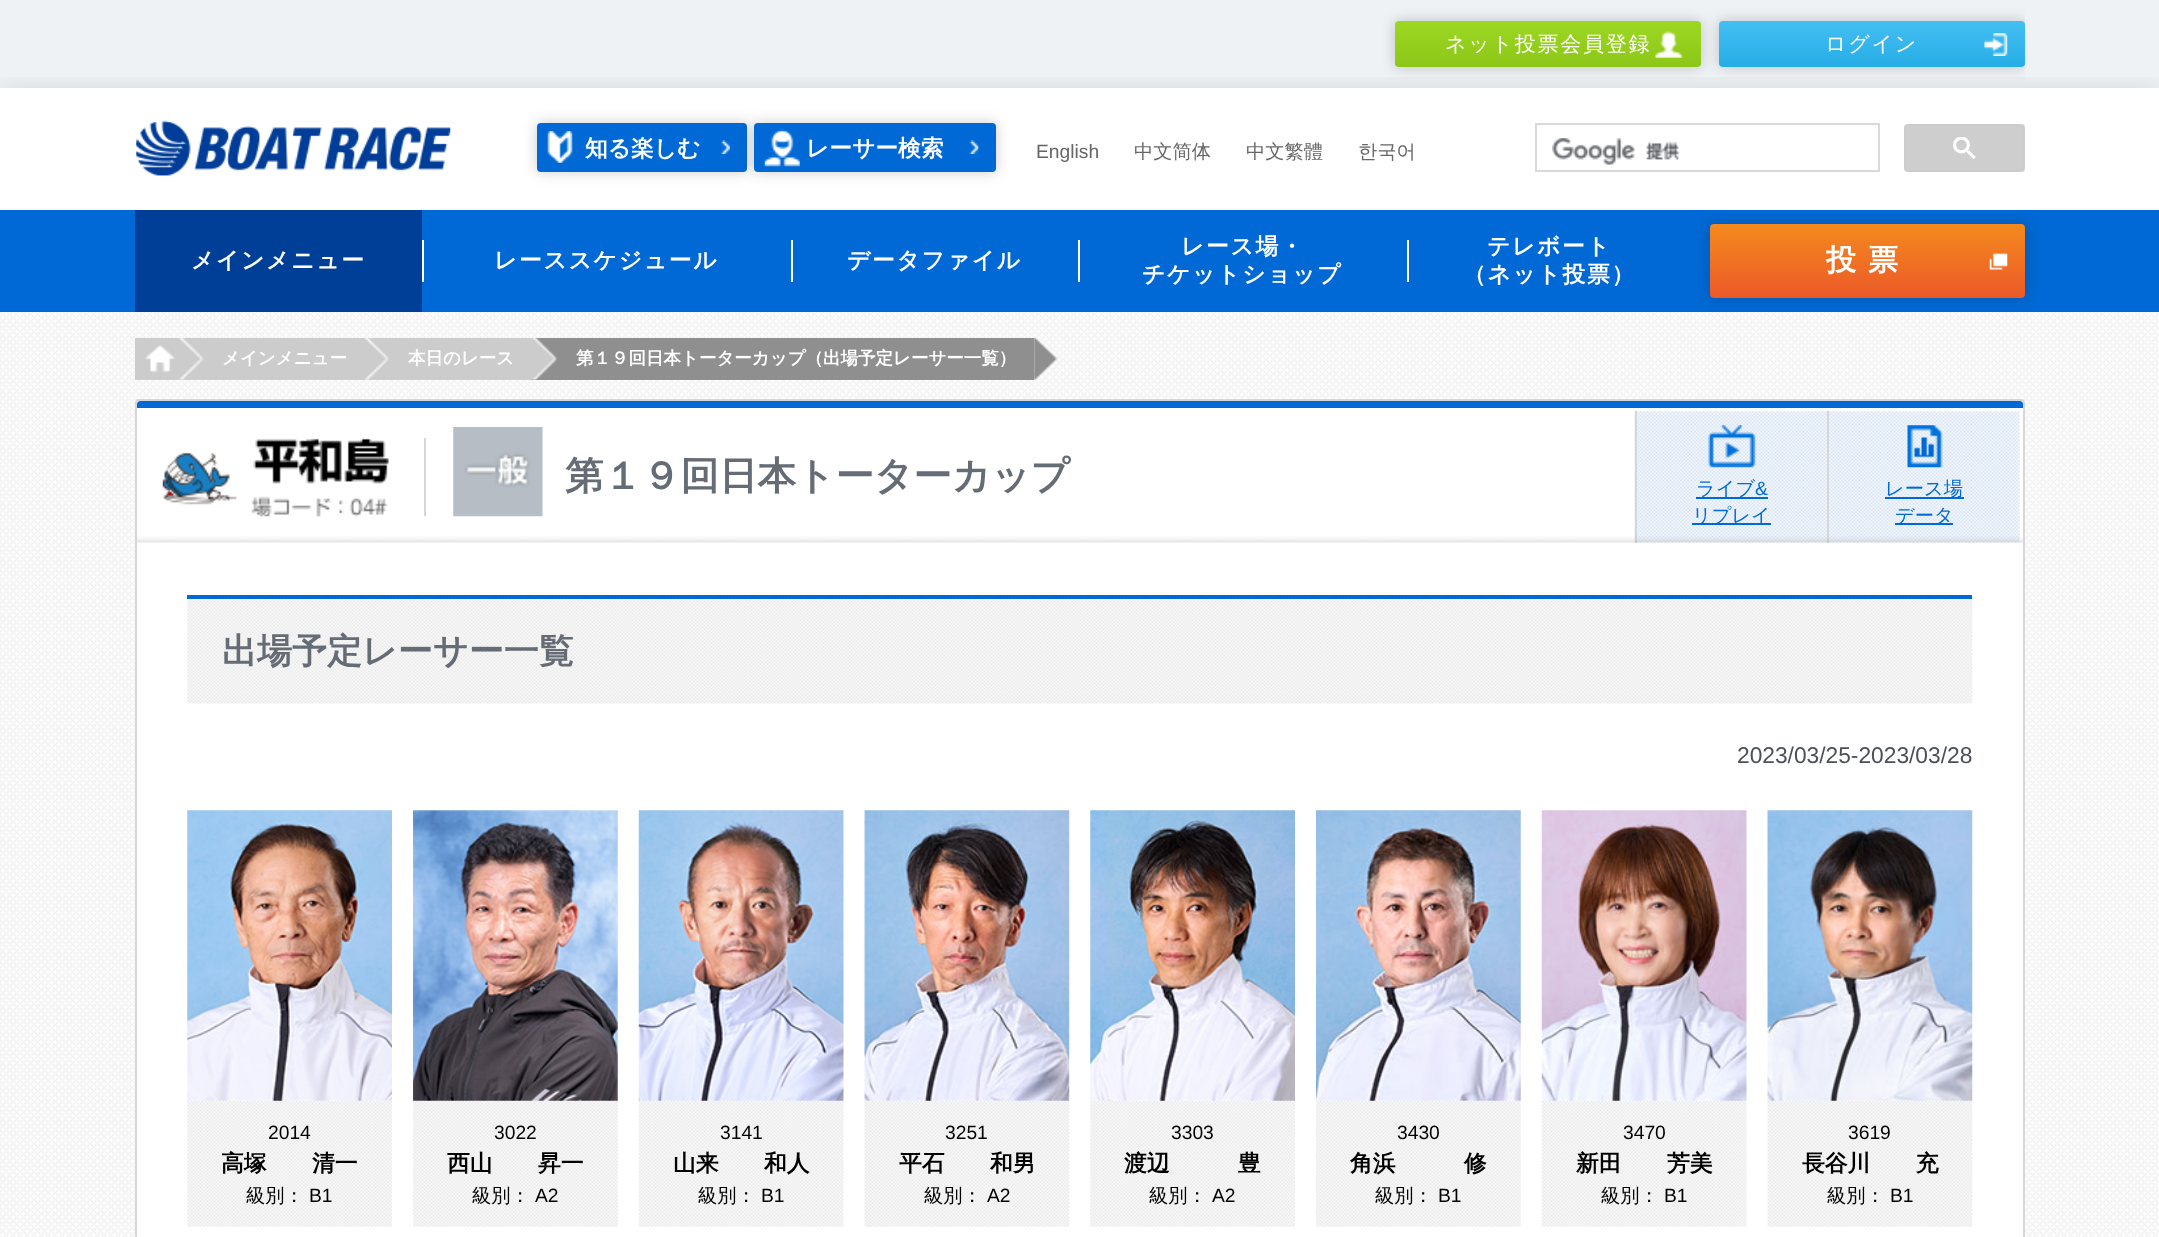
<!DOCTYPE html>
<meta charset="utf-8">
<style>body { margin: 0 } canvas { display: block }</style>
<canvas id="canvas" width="2159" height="1237"></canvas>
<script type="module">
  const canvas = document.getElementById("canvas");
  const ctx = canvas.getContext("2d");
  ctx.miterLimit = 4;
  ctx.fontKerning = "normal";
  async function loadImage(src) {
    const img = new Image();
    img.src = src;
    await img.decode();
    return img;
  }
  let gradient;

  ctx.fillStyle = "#ffffff";
  ctx.fillRect(0, 0, 2159, 1237);
  ctx.fillStyle = "#eef2f5";
  ctx.fillRect(0, 0, 2159, 88);
  ctx.fillStyle = "rgba(0, 0, 0, 0.2)";
  ctx.filter = "blur(7px)";
  ctx.beginPath();
  ctx.roundRect(1395, 21, 306, 46, 4);
  ctx.fill();
  ctx.filter = "none";
  gradient = ctx.createLinearGradient(1548, 21, 1548, 67);
  gradient.addColorStop(0, "#9cd822");
  gradient.addColorStop(1, "#8dc618");
  ctx.fillStyle = gradient;
  ctx.beginPath();
  ctx.roundRect(1395, 21, 306, 46, 4);
  ctx.fill();
  ctx.letterSpacing = "1.75px";
  ctx.font = "500 21px WenQuanYi Zen Hei";
  ctx.fillStyle = "#ffffff";
  ctx.fillText("ネット投票会員登録", 1445, 51);
  ctx.drawImage(await loadImage("img1.png"), 1654, 31, 29, 27);
  ctx.save();
  ctx.beginPath();
  ctx.rect(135, 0, 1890, 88);
  ctx.clip();
  ctx.fillStyle = "rgba(0, 0, 0, 0.2)";
  ctx.filter = "blur(7px)";
  ctx.beginPath();
  ctx.roundRect(1719, 21, 306, 46, 4);
  ctx.fill();
  ctx.filter = "none";
  ctx.restore();
  gradient = ctx.createLinearGradient(1872, 21, 1872, 67);
  gradient.addColorStop(0, "#44bff3");
  gradient.addColorStop(1, "#26ade6");
  ctx.fillStyle = gradient;
  ctx.beginPath();
  ctx.roundRect(1719, 21, 306, 46, 4);
  ctx.fill();
  ctx.fillStyle = "#ffffff";
  ctx.fillText("ログイン", 1825, 51);
  ctx.drawImage(await loadImage("img2.png"), 1984, 33, 24, 23);
  ctx.save();
  ctx.beginPath();
  ctx.rect(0, 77, 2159, 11);
  ctx.clip();
  ctx.fillStyle = "rgba(0, 0, 0, 0.1)";
  ctx.filter = "blur(13px)";
  ctx.beginPath();
  ctx.rect(0, 88, 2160, 122);
  ctx.fill();
  ctx.filter = "none";
  ctx.restore();
  ctx.drawImage(await loadImage("img3.png"), 136, 120, 315, 56);
  ctx.fillStyle = "rgba(0, 0, 0, 0.2)";
  ctx.filter = "blur(7px)";
  ctx.beginPath();
  ctx.roundRect(537, 123, 210, 49, 4);
  ctx.fill();
  ctx.filter = "none";
  ctx.fillStyle = "#0069d5";
  ctx.beginPath();
  ctx.roundRect(537, 123, 210, 49, 4);
  ctx.fill();
  ctx.drawImage(await loadImage("img4.png"), 547, 131, 26, 32);
  ctx.letterSpacing = "0px";
  ctx.font = "bold 22.75px WenQuanYi Zen Hei";
  ctx.fillStyle = "#ffffff";
  ctx.fillText("知る楽しむ", 585, 156);
  ctx.drawImage(await loadImage("img5.png"), 721, 140, 9, 14);
  ctx.fillStyle = "rgba(0, 0, 0, 0.2)";
  ctx.filter = "blur(7px)";
  ctx.beginPath();
  ctx.roundRect(754, 123, 242, 49, 4);
  ctx.fill();
  ctx.filter = "none";
  ctx.fillStyle = "#0069d5";
  ctx.beginPath();
  ctx.roundRect(754, 123, 242, 49, 4);
  ctx.fill();
  ctx.drawImage(await loadImage("img6.png"), 764, 129, 36, 38);
  ctx.fillStyle = "#ffffff";
  ctx.fillText("レーサー検索", 806, 156);
  ctx.drawImage(await loadImage("img7.png"), 969, 140, 10, 14);
  ctx.font = "19.25px Liberation Sans";
  ctx.fillStyle = "#666666";
  ctx.fillText("English", 1036, 158);
  ctx.font = "500 19.25px WenQuanYi Zen Hei";
  ctx.fillText("中文简体", 1134, 158);
  ctx.fillText("中文繁體", 1246, 158);
  ctx.fillText("한국어", 1358, 158);
  ctx.strokeStyle = "#d9d9d9";
  ctx.lineWidth = 2;
  ctx.strokeRect(1536, 124, 343, 47);
  ctx.drawImage(await loadImage("img8.png"), 1552, 138, 128, 27);
  ctx.fillStyle = "#cecece";
  ctx.beginPath();
  ctx.roundRect(1905, 125, 119, 46, 3);
  ctx.fill();
  ctx.strokeStyle = "#cccccc";
  ctx.stroke();
  ctx.drawImage(await loadImage("img9.png"), 1953, 137, 23, 22);
  ctx.fillStyle = "#0069d5";
  ctx.fillRect(0, 210, 2159, 102);
  ctx.fillStyle = "#003f97";
  ctx.fillRect(135, 210, 287, 102);
  ctx.letterSpacing = "1.75px";
  ctx.font = "bold 22.75px WenQuanYi Zen Hei";
  ctx.fillStyle = "#ffffff";
  ctx.fillText("メインメニュー", 191, 268);
  ctx.fillRect(422, 240, 2, 42);
  ctx.fillText("レーススケジュール", 494, 268);
  ctx.fillRect(791, 240, 2, 42);
  ctx.fillText("データファイル", 847, 268);
  ctx.fillRect(1078, 240, 2, 42);
  ctx.fillText("レース場・", 1181, 254);
  ctx.fillText("チケットショップ", 1142, 282);
  ctx.fillRect(1407, 240, 2, 42);
  ctx.fillText("テレボート", 1487, 254);
  ctx.fillText("（ネット投票）", 1463, 282);
  ctx.drawImage(await loadImage("img16.png"), 0, 312, 2159, 925);
  ctx.fillStyle = "rgba(0, 0, 0, 0.2)";
  ctx.filter = "blur(7px)";
  ctx.beginPath();
  ctx.roundRect(1710, 224, 315, 74, 4);
  ctx.fill();
  ctx.filter = "none";
  gradient = ctx.createLinearGradient(1867, 224, 1867, 298);
  gradient.addColorStop(0, "#f48a1d");
  gradient.addColorStop(1, "#ec5929");
  ctx.fillStyle = gradient;
  ctx.beginPath();
  ctx.roundRect(1710, 224, 315, 74, 4);
  ctx.fill();
  ctx.letterSpacing = "12px";
  ctx.font = "bold 30px WenQuanYi Zen Hei";
  ctx.fillStyle = "#ffffff";
  ctx.fillText("投票", 1826, 270);
  ctx.drawImage(await loadImage("img10.png"), 1989, 253, 19, 17);
  ctx.fillStyle = "#cccccc";
  ctx.fillRect(135, 338, 397, 42);
  ctx.drawImage(await loadImage("img11.png"), 145, 345, 30, 28);
  ctx.drawImage(await loadImage("img12.png"), 178, 338, 26, 42);
  ctx.letterSpacing = "0px";
  ctx.font = "bold 17.5px WenQuanYi Zen Hei";
  ctx.fillStyle = "#ffffff";
  ctx.fillText("メインメニュー", 222, 364);
  ctx.drawImage(await loadImage("img13.png"), 364, 338, 25, 42);
  ctx.fillText("本日のレース", 408, 364);
  ctx.fillStyle = "#8f8f8f";
  ctx.fillRect(532, 338, 502, 42);
  ctx.drawImage(await loadImage("img14.png"), 532, 338, 25, 42);
  ctx.fillStyle = "#ffffff";
  ctx.fillText("第１９回日本トーターカップ（出場予定レーサー一覧）", 576, 364);
  ctx.drawImage(await loadImage("img15.png"), 1034, 337, 24, 43);
  ctx.beginPath();
  ctx.roundRect(136, 400, 1888, 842, 3);
  ctx.fill();
  ctx.strokeStyle = "#d5d6d7";
  ctx.stroke();
  ctx.fillStyle = "#0069d5";
  ctx.beginPath();
  ctx.roundRect(137, 401, 1886, 7, [3.5, 3.5, 0, 0]);
  ctx.fill();
  ctx.drawImage(await loadImage("img17.png"), 162, 438, 227, 79);
  ctx.fillStyle = "#d5d6d7";
  ctx.fillRect(424, 438, 2, 78);
  ctx.drawImage(await loadImage("img18.png"), 453, 427, 90, 90);
  ctx.font = "bold 38.5px WenQuanYi Zen Hei";
  ctx.fillStyle = "#666c75";
  ctx.fillText("第１９回日本トーターカップ", 565, 489);
  ctx.drawImage(await loadImage("img19.png"), 1634, 411, 193, 132);
  ctx.fillStyle = "#d5d6d7";
  ctx.fillRect(1635, 411, 2, 132);
  ctx.drawImage(await loadImage("img20.png"), 1708, 425, 48, 43);
  ctx.fillStyle = "#0069d5";
  ctx.fillRect(1696, 497, 72, 2);
  ctx.font = "500 19.25px WenQuanYi Zen Hei";
  ctx.fillText("ライブ", 1696, 495);
  ctx.font = "19.25px Liberation Sans";
  ctx.fillText("&", 1755, 495);
  ctx.fillRect(1692, 523, 79, 2);
  ctx.font = "500 19.25px WenQuanYi Zen Hei";
  ctx.fillText("リプレイ", 1692, 522);
  ctx.drawImage(await loadImage("img21.png"), 1829, 411, 191, 132);
  ctx.fillStyle = "#d5d6d7";
  ctx.fillRect(1827, 411, 2, 132);
  ctx.drawImage(await loadImage("img22.png"), 1907, 425, 36, 43);
  ctx.fillStyle = "#0069d5";
  ctx.fillRect(1885, 497, 79, 2);
  ctx.fillText("レース場", 1885, 495);
  ctx.fillRect(1895, 523, 58, 2);
  ctx.fillText("データ", 1895, 522);
  ctx.drawImage(await loadImage("img23.png"), 137, 536, 1886, 7);
  ctx.drawImage(await loadImage("img24.png"), 187, 595, 1786, 109);
  ctx.fillRect(187, 595, 1785, 4);
  ctx.font = "bold 35px WenQuanYi Zen Hei";
  ctx.fillStyle = "#666c75";
  ctx.fillText("出場予定レーサー一覧", 222, 663);
  ctx.font = "22.75px Liberation Sans";
  ctx.fillStyle = "#4c5159";
  ctx.fillText("2023/03/25-2023/03/28", 1737, 763);
  ctx.drawImage(await loadImage("img26.png"), 187, 1100, 205, 127);
  ctx.drawImage(await loadImage("img25.png"), 187, 810, 205, 291);
  ctx.font = "19.25px Liberation Sans";
  ctx.fillStyle = "#000000";
  ctx.fillText("2014", 268, 1139);
  ctx.font = "bold 22.75px WenQuanYi Zen Hei";
  ctx.fillText("高塚　　清一", 221, 1171);
  ctx.font = "500 19.25px WenQuanYi Zen Hei";
  ctx.fillText("級別：", 246, 1202);
  ctx.font = "19.25px Liberation Sans";
  ctx.fillText("B1", 309, 1202);
  ctx.drawImage(await loadImage("img28.png"), 413, 1100, 205, 127);
  ctx.drawImage(await loadImage("img27.png"), 413, 810, 205, 291);
  ctx.fillText("3022", 494, 1139);
  ctx.font = "bold 22.75px WenQuanYi Zen Hei";
  ctx.fillText("西山　　昇一", 447, 1171);
  ctx.font = "500 19.25px WenQuanYi Zen Hei";
  ctx.fillText("級別：", 472, 1202);
  ctx.font = "19.25px Liberation Sans";
  ctx.fillText("A2", 535, 1202);
  ctx.drawImage(await loadImage("img30.png"), 638, 1100, 206, 127);
  ctx.drawImage(await loadImage("img29.png"), 638, 810, 206, 291);
  ctx.fillText("3141", 720, 1139);
  ctx.font = "bold 22.75px WenQuanYi Zen Hei";
  ctx.fillText("山来　　和人", 673, 1171);
  ctx.font = "500 19.25px WenQuanYi Zen Hei";
  ctx.fillText("級別：", 698, 1202);
  ctx.font = "19.25px Liberation Sans";
  ctx.fillText("B1", 761, 1202);
  ctx.drawImage(await loadImage("img32.png"), 864, 1100, 206, 127);
  ctx.drawImage(await loadImage("img31.png"), 864, 810, 206, 291);
  ctx.fillText("3251", 945, 1139);
  ctx.font = "bold 22.75px WenQuanYi Zen Hei";
  ctx.fillText("平石　　和男", 899, 1171);
  ctx.font = "500 19.25px WenQuanYi Zen Hei";
  ctx.fillText("級別：", 924, 1202);
  ctx.font = "19.25px Liberation Sans";
  ctx.fillText("A2", 987, 1202);
  ctx.drawImage(await loadImage("img34.png"), 1090, 1100, 205, 127);
  ctx.drawImage(await loadImage("img33.png"), 1090, 810, 205, 291);
  ctx.fillText("3303", 1171, 1139);
  ctx.font = "bold 22.75px WenQuanYi Zen Hei";
  ctx.fillText("渡辺　　　豊", 1124, 1171);
  ctx.font = "500 19.25px WenQuanYi Zen Hei";
  ctx.fillText("級別：", 1149, 1202);
  ctx.font = "19.25px Liberation Sans";
  ctx.fillText("A2", 1212, 1202);
  ctx.drawImage(await loadImage("img28.png"), 1316, 1100, 205, 127);
  ctx.drawImage(await loadImage("img35.png"), 1316, 810, 205, 291);
  ctx.fillText("3430", 1397, 1139);
  ctx.font = "bold 22.75px WenQuanYi Zen Hei";
  ctx.fillText("角浜　　　修", 1350, 1171);
  ctx.font = "500 19.25px WenQuanYi Zen Hei";
  ctx.fillText("級別：", 1375, 1202);
  ctx.font = "19.25px Liberation Sans";
  ctx.fillText("B1", 1438, 1202);
  ctx.drawImage(await loadImage("img30.png"), 1541, 1100, 206, 127);
  ctx.drawImage(await loadImage("img36.png"), 1541, 810, 206, 291);
  ctx.fillText("3470", 1623, 1139);
  ctx.font = "bold 22.75px WenQuanYi Zen Hei";
  ctx.fillText("新田　　芳美", 1576, 1171);
  ctx.font = "500 19.25px WenQuanYi Zen Hei";
  ctx.fillText("級別：", 1601, 1202);
  ctx.font = "19.25px Liberation Sans";
  ctx.fillText("B1", 1664, 1202);
  ctx.drawImage(await loadImage("img38.png"), 1767, 1100, 206, 127);
  ctx.drawImage(await loadImage("img37.png"), 1767, 810, 206, 291);
  ctx.fillText("3619", 1848, 1139);
  ctx.font = "bold 22.75px WenQuanYi Zen Hei";
  ctx.fillText("長谷川　　充", 1802, 1171);
  ctx.font = "500 19.25px WenQuanYi Zen Hei";
  ctx.fillText("級別：", 1827, 1202);
  ctx.font = "19.25px Liberation Sans";
  ctx.fillText("B1", 1890, 1202);
</script>
